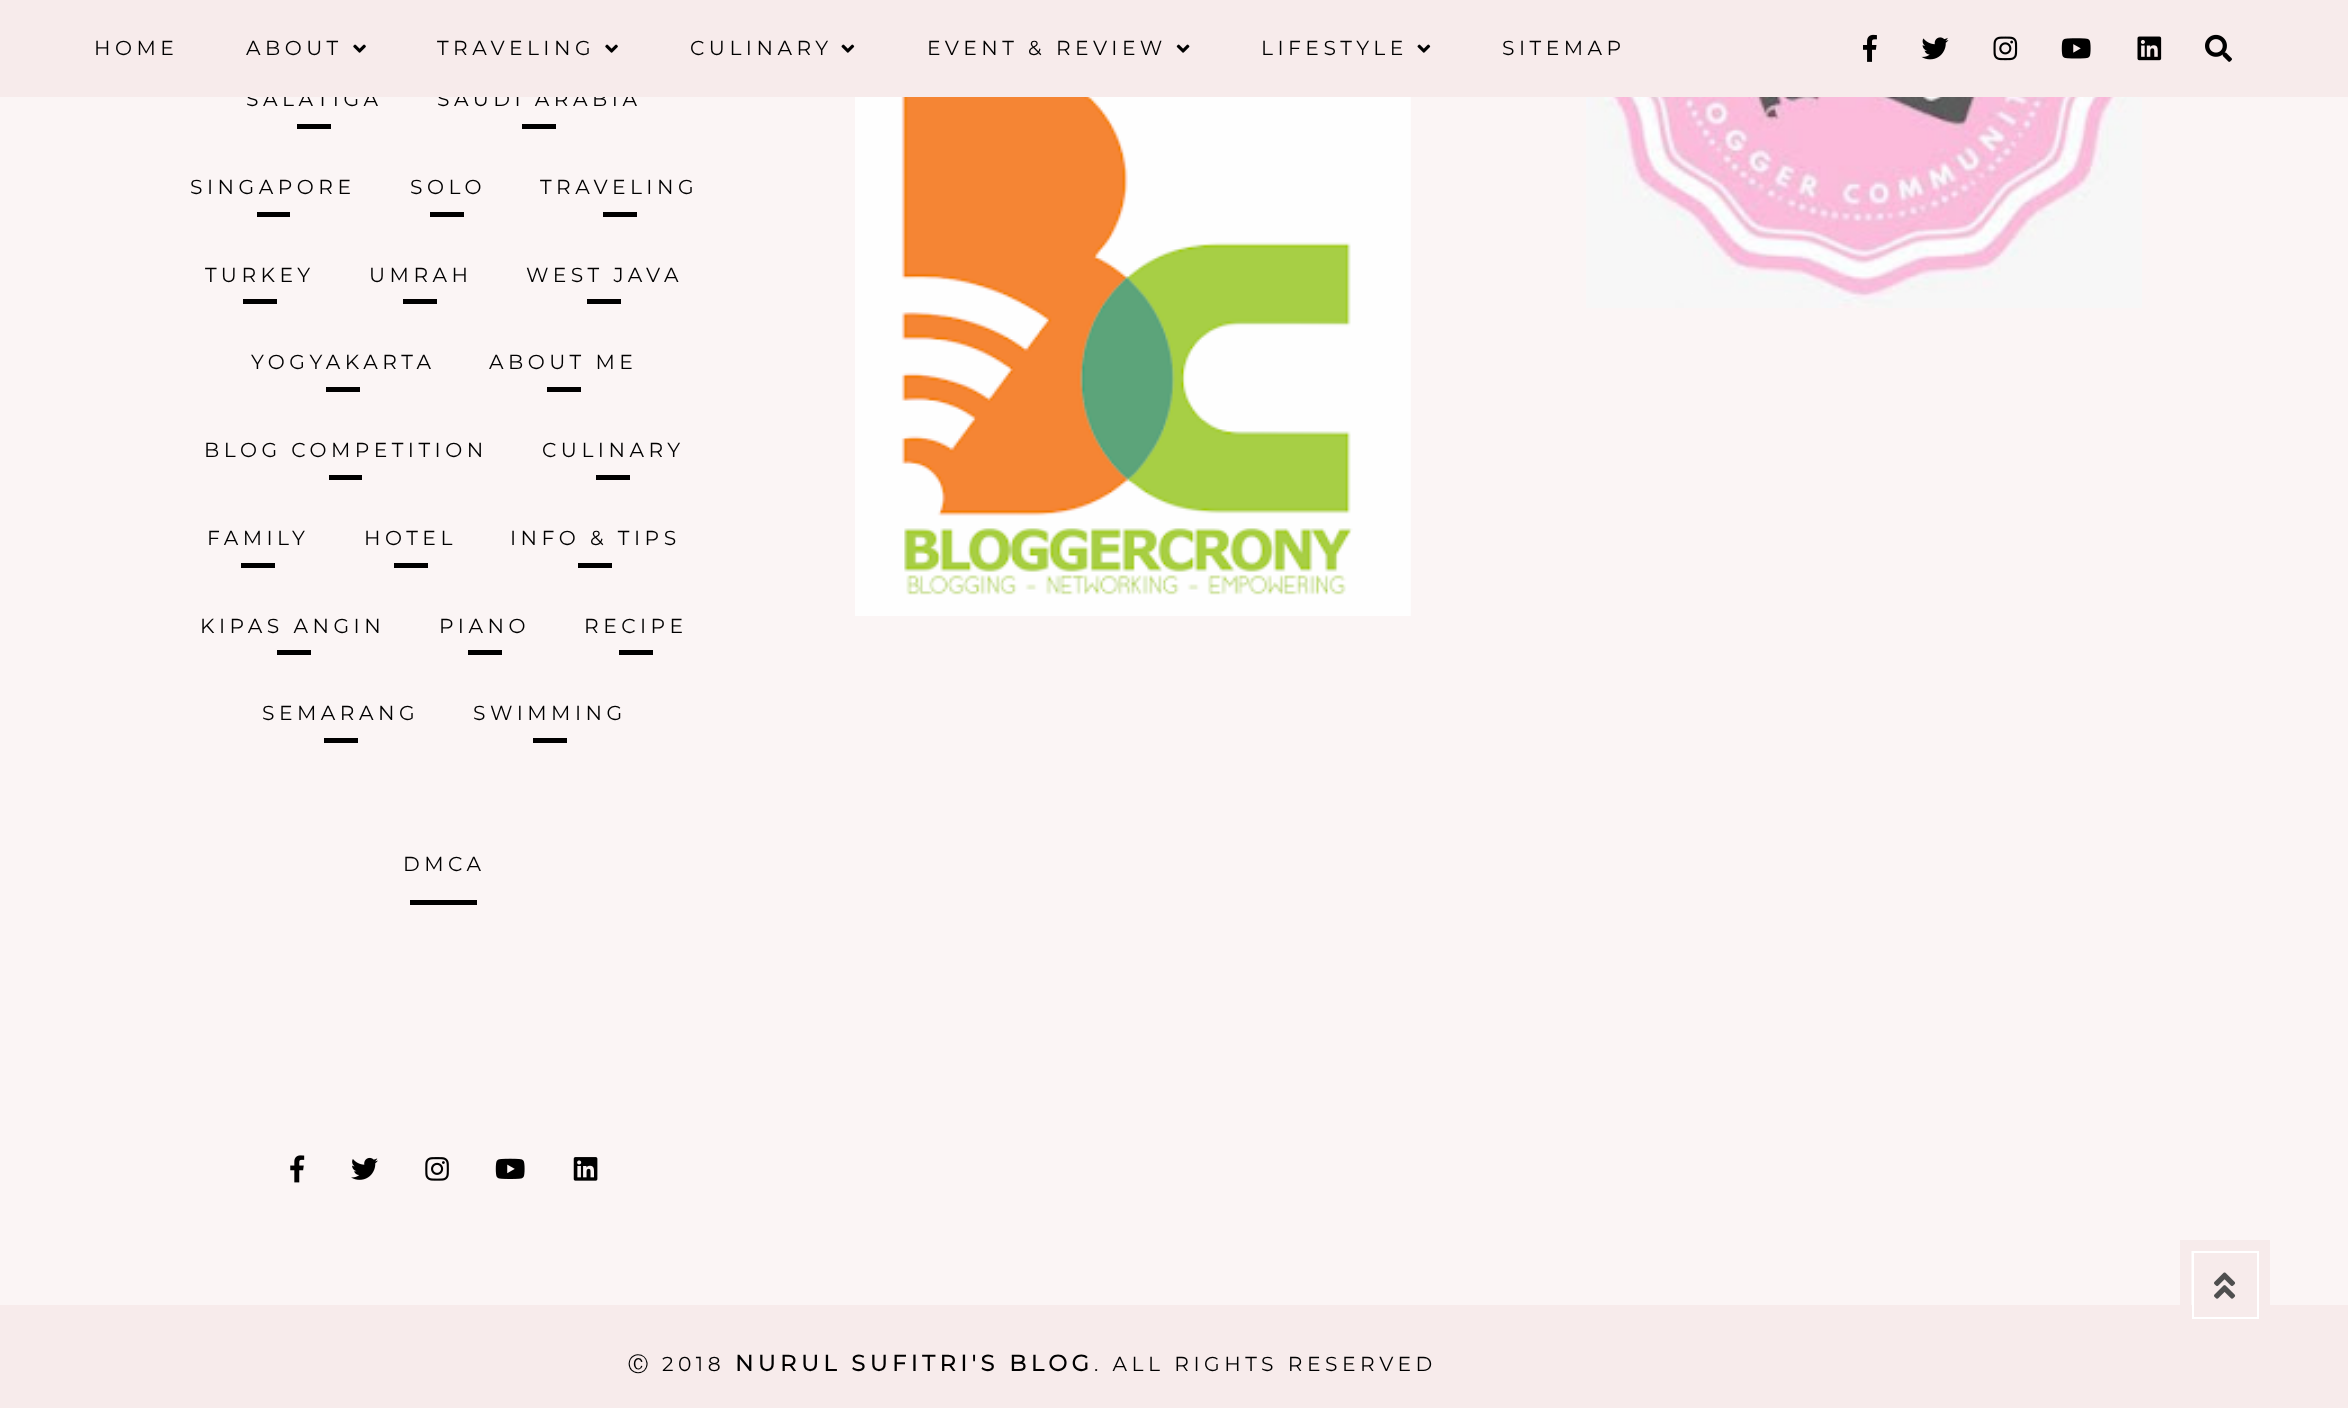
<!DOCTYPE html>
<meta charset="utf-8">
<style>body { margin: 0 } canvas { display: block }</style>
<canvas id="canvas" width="2348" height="1408"></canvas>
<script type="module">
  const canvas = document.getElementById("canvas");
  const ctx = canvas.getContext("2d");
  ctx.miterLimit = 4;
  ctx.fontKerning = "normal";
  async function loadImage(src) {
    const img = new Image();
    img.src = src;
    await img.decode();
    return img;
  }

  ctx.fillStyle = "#fbf5f5";
  ctx.fillRect(0, 0, 2348, 1408);
  ctx.letterSpacing = "4.5px";
  ctx.font = "100 20.25px Montserrat";
  ctx.fillStyle = "#000000";
  ctx.fillText("SALATIGA", 246, 106);
  ctx.fillText("SAUDI ARABIA", 437, 106);
  ctx.fillStyle = "#f7ebeb";
  ctx.fillRect(0, 0, 2348, 97);
  ctx.fillStyle = "#000000";
  ctx.fillText("HOME", 94, 55);
  ctx.fillText("ABOUT", 246, 55);
  ctx.drawImage(await loadImage("img1.png"), 353, 44, 13, 9);
  ctx.fillText("TRAVELING", 437, 55);
  ctx.drawImage(await loadImage("img1.png"), 605, 44, 13, 9);
  ctx.fillText("CULINARY", 690, 55);
  ctx.drawImage(await loadImage("img2.png"), 841, 44, 14, 9);
  ctx.fillText("EVENT & REVIEW", 927, 55);
  ctx.drawImage(await loadImage("img3.png"), 1176, 44, 14, 9);
  ctx.fillText("LIFESTYLE", 1261, 55);
  ctx.drawImage(await loadImage("img2.png"), 1417, 44, 14, 9);
  ctx.fillText("SITEMAP", 1502, 55);
  ctx.drawImage(await loadImage("img4.png"), 1863, 34, 14, 28);
  ctx.drawImage(await loadImage("img5.png"), 1921, 37, 28, 23);
  ctx.drawImage(await loadImage("img6.png"), 1993, 36, 25, 25);
  ctx.drawImage(await loadImage("img7.png"), 2061, 38, 30, 21);
  ctx.drawImage(await loadImage("img8.png"), 2137, 36, 25, 25);
  ctx.drawImage(await loadImage("img9.png"), 2205, 34, 27, 28);
  ctx.fillRect(297, 124, 34, 5);
  ctx.fillRect(522, 124, 34, 5);
  ctx.fillText("SINGAPORE", 190, 194);
  ctx.fillRect(257, 212, 33, 5);
  ctx.fillText("SOLO", 410, 194);
  ctx.fillRect(430, 212, 34, 5);
  ctx.fillText("TRAVELING", 540, 194);
  ctx.fillRect(603, 212, 34, 5);
  ctx.fillText("TURKEY", 205, 282);
  ctx.fillRect(243, 299, 34, 5);
  ctx.fillText("UMRAH", 369, 282);
  ctx.fillRect(403, 299, 34, 5);
  ctx.fillText("WEST JAVA", 526, 282);
  ctx.fillRect(587, 299, 34, 5);
  ctx.fillText("YOGYAKARTA", 251, 369);
  ctx.fillRect(326, 387, 34, 5);
  ctx.fillText("ABOUT ME", 489, 369);
  ctx.fillRect(547, 387, 34, 5);
  ctx.fillText("BLOG COMPETITION", 204, 457);
  ctx.fillRect(329, 475, 33, 5);
  ctx.fillText("CULINARY", 542, 457);
  ctx.fillRect(596, 475, 34, 5);
  ctx.fillText("FAMILY", 207, 545);
  ctx.fillRect(241, 563, 34, 5);
  ctx.fillText("HOTEL", 364, 545);
  ctx.fillRect(394, 563, 34, 5);
  ctx.fillText("INFO & TIPS", 510, 545);
  ctx.fillRect(578, 563, 34, 5);
  ctx.fillText("KIPAS ANGIN", 200, 633);
  ctx.fillRect(277, 650, 34, 5);
  ctx.fillText("PIANO", 439, 633);
  ctx.fillRect(468, 650, 34, 5);
  ctx.fillText("RECIPE", 584, 633);
  ctx.fillRect(619, 650, 34, 5);
  ctx.fillText("SEMARANG", 262, 720);
  ctx.fillRect(324, 738, 34, 5);
  ctx.fillText("SWIMMING", 473, 720);
  ctx.fillRect(533, 738, 34, 5);
  ctx.fillText("DMCA", 403, 871);
  ctx.fillRect(410, 900, 67, 5);
  ctx.drawImage(await loadImage("img10.png"), 290, 1155, 15, 28);
  ctx.drawImage(await loadImage("img11.png"), 351, 1157, 27, 23);
  ctx.drawImage(await loadImage("img12.png"), 425, 1157, 24, 24);
  ctx.drawImage(await loadImage("img13.png"), 495, 1158, 30, 21);
  ctx.drawImage(await loadImage("img14.png"), 573, 1157, 25, 24);
  ctx.drawImage(await loadImage("img15.png"), 855, 97, 556, 519);
  ctx.drawImage(await loadImage("img16.png"), 1586, 97, 556, 211);
  ctx.fillStyle = "#f7ebeb";
  ctx.fillRect(2194, 1253, 63, 52);
  ctx.fillRect(0, 1305, 2348, 103);
  ctx.strokeStyle = "#ffffff";
  ctx.lineWidth = 2;
  ctx.strokeRect(2193, 1252, 65, 66);
  ctx.drawImage(await loadImage("img17.png"), 2214, 1272, 22, 27);
  ctx.strokeStyle = "#f7ebeb";
  ctx.lineWidth = 11;
  ctx.strokeRect(2185.5, 1245.5, 79, 79);
  ctx.font = "500 20.25px WenQuanYi Zen Hei";
  ctx.fillStyle = "#000000";
  ctx.fillText("Ⓒ", 628, 1371);
  ctx.font = "100 20.25px Montserrat";
  ctx.fillText("2018", 662, 1371);
  ctx.font = "bold 22.5px Montserrat";
  ctx.fillText("NURUL SUFITRI'S BLOG", 735, 1371);
  ctx.font = "100 20.25px Montserrat";
  ctx.fillText(". ALL RIGHTS RESERVED", 1094, 1371);
</script>
